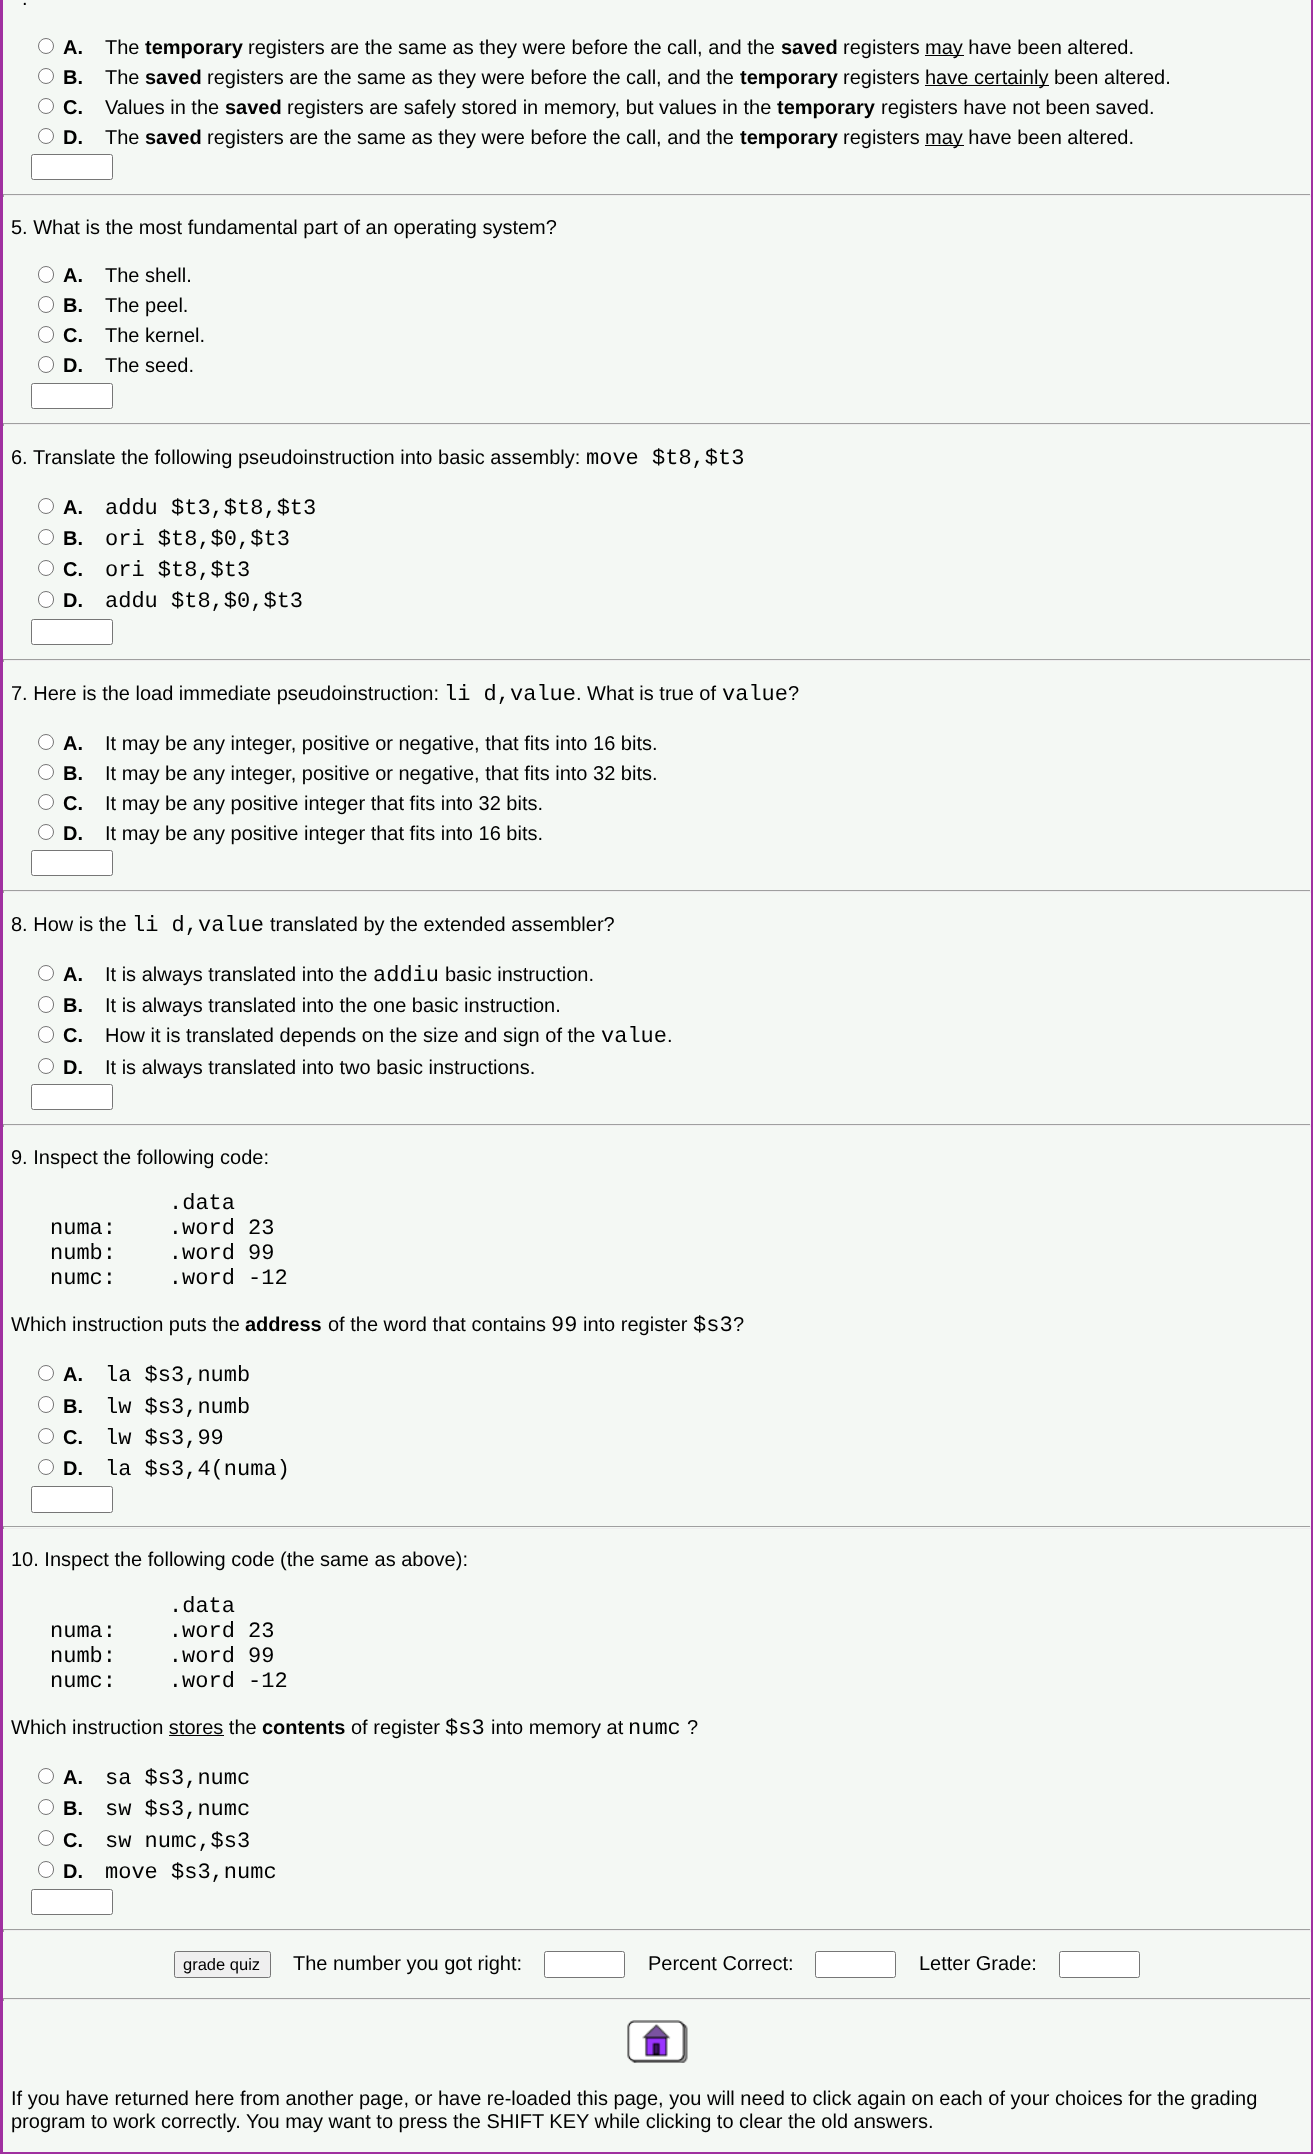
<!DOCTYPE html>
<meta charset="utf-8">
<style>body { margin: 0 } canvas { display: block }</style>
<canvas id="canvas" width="1313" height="2154"></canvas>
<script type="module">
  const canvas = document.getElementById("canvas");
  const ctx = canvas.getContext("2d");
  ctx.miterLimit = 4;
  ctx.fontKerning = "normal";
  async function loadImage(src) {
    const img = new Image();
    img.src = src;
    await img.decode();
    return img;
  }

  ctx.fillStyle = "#f4f8f4";
  ctx.fillRect(0, 0, 1313, 2154);
  ctx.strokeStyle = "#a030a0";
  ctx.lineWidth = 3;
  ctx.strokeRect(1.5, -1.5, 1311, 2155);
  ctx.font = "20px Liberation Sans";
  ctx.fillStyle = "#000000";
  ctx.fillText(".", 22, 5);
  ctx.fillStyle = "#ffffff";
  ctx.beginPath();
  ctx.arc(46, 46, 7.5, 0, Math.PI * 2);
  ctx.fill();
  ctx.strokeStyle = "#767676";
  ctx.lineWidth = 1;
  ctx.stroke();
  ctx.font = "bold 20px Liberation Sans";
  ctx.fillStyle = "#000000";
  ctx.fillText("A.", 63, 54);
  ctx.font = "20px Liberation Sans";
  ctx.fillText("The", 105, 54);
  ctx.font = "bold 20px Liberation Sans";
  ctx.fillText("temporary", 145, 54);
  ctx.font = "20px Liberation Sans";
  ctx.fillText("registers are the same as they were before the call, and the", 248, 54);
  ctx.font = "bold 20px Liberation Sans";
  ctx.fillText("saved", 781, 54);
  ctx.font = "20px Liberation Sans";
  ctx.fillText("registers", 843, 54);
  ctx.fillRect(925, 55, 39, 1);
  ctx.fillText("may have been altered.", 925, 54);
  ctx.fillStyle = "#ffffff";
  ctx.beginPath();
  ctx.arc(46, 76, 7.5, 0, Math.PI * 2);
  ctx.fill();
  ctx.stroke();
  ctx.font = "bold 20px Liberation Sans";
  ctx.fillStyle = "#000000";
  ctx.fillText("B.", 63, 84);
  ctx.font = "20px Liberation Sans";
  ctx.fillText("The", 105, 84);
  ctx.font = "bold 20px Liberation Sans";
  ctx.fillText("saved", 145, 84);
  ctx.font = "20px Liberation Sans";
  ctx.fillText("registers are the same as they were before the call, and the", 207, 84);
  ctx.font = "bold 20px Liberation Sans";
  ctx.fillText("temporary", 740, 84);
  ctx.font = "20px Liberation Sans";
  ctx.fillText("registers", 843, 84);
  ctx.fillRect(925, 85, 124, 1);
  ctx.fillText("have certainly been altered.", 925, 84);
  ctx.fillStyle = "#ffffff";
  ctx.beginPath();
  ctx.arc(46, 106, 7.5, 0, Math.PI * 2);
  ctx.fill();
  ctx.stroke();
  ctx.font = "bold 20px Liberation Sans";
  ctx.fillStyle = "#000000";
  ctx.fillText("C.", 63, 114);
  ctx.font = "20px Liberation Sans";
  ctx.fillText("Values in the", 105, 114);
  ctx.font = "bold 20px Liberation Sans";
  ctx.fillText("saved", 225, 114);
  ctx.font = "20px Liberation Sans";
  ctx.fillText("registers are safely stored in memory, but values in the", 287, 114);
  ctx.font = "bold 20px Liberation Sans";
  ctx.fillText("temporary", 777, 114);
  ctx.font = "20px Liberation Sans";
  ctx.fillText("registers have not been saved.", 881, 114);
  ctx.fillStyle = "#ffffff";
  ctx.beginPath();
  ctx.arc(46, 136, 7.5, 0, Math.PI * 2);
  ctx.fill();
  ctx.stroke();
  ctx.font = "bold 20px Liberation Sans";
  ctx.fillStyle = "#000000";
  ctx.fillText("D.", 63, 144);
  ctx.font = "20px Liberation Sans";
  ctx.fillText("The", 105, 144);
  ctx.font = "bold 20px Liberation Sans";
  ctx.fillText("saved", 145, 144);
  ctx.font = "20px Liberation Sans";
  ctx.fillText("registers are the same as they were before the call, and the", 207, 144);
  ctx.font = "bold 20px Liberation Sans";
  ctx.fillText("temporary", 740, 144);
  ctx.font = "20px Liberation Sans";
  ctx.fillText("registers", 843, 144);
  ctx.fillRect(925, 145, 39, 1);
  ctx.fillText("may have been altered.", 925, 144);
  ctx.fillStyle = "#ffffff";
  ctx.beginPath();
  ctx.roundRect(31.5, 154.5, 81, 25, 2);
  ctx.fill();
  ctx.stroke();
  ctx.fillStyle = "#9f9f9f";
  ctx.fillRect(3, 194, 1308, 1);
  ctx.fillStyle = "#eeeeee";
  ctx.fillRect(1310, 194, 1, 3);
  ctx.fillRect(3, 195, 1308, 1);
  ctx.fillStyle = "#9f9f9f";
  ctx.fillRect(3, 194, 1, 3);
  ctx.fillStyle = "#000000";
  ctx.fillText("5. What is the most fundamental part of an operating system?", 11, 234);
  ctx.fillStyle = "#ffffff";
  ctx.beginPath();
  ctx.roundRect(38.5, 266.5, 15, 16, 7.5);
  ctx.fill();
  ctx.stroke();
  ctx.font = "bold 20px Liberation Sans";
  ctx.fillStyle = "#000000";
  ctx.fillText("A.", 63, 282);
  ctx.font = "20px Liberation Sans";
  ctx.fillText("The shell.", 105, 282);
  ctx.fillStyle = "#ffffff";
  ctx.beginPath();
  ctx.roundRect(38.5, 296.5, 15, 16, 7.5);
  ctx.fill();
  ctx.stroke();
  ctx.font = "bold 20px Liberation Sans";
  ctx.fillStyle = "#000000";
  ctx.fillText("B.", 63, 312);
  ctx.font = "20px Liberation Sans";
  ctx.fillText("The peel.", 105, 312);
  ctx.fillStyle = "#ffffff";
  ctx.beginPath();
  ctx.roundRect(38.5, 326.5, 15, 16, 7.5);
  ctx.fill();
  ctx.stroke();
  ctx.font = "bold 20px Liberation Sans";
  ctx.fillStyle = "#000000";
  ctx.fillText("C.", 63, 342);
  ctx.font = "20px Liberation Sans";
  ctx.fillText("The kernel.", 105, 342);
  ctx.fillStyle = "#ffffff";
  ctx.beginPath();
  ctx.roundRect(38.5, 356.5, 15, 16, 7.5);
  ctx.fill();
  ctx.stroke();
  ctx.font = "bold 20px Liberation Sans";
  ctx.fillStyle = "#000000";
  ctx.fillText("D.", 63, 372);
  ctx.font = "20px Liberation Sans";
  ctx.fillText("The seed.", 105, 372);
  ctx.fillStyle = "#ffffff";
  ctx.beginPath();
  ctx.roundRect(31.5, 383.5, 81, 25, 2);
  ctx.fill();
  ctx.stroke();
  ctx.fillStyle = "#9f9f9f";
  ctx.fillRect(3, 423, 1308, 1);
  ctx.fillStyle = "#eeeeee";
  ctx.fillRect(1310, 423, 1, 3);
  ctx.fillRect(3, 424, 1308, 1);
  ctx.fillStyle = "#9f9f9f";
  ctx.fillRect(3, 423, 1, 3);
  ctx.fillStyle = "#000000";
  ctx.fillText("6.", 11, 464);
  ctx.fillText("Translate the following pseudoinstruction into basic assembly:", 33, 464);
  ctx.font = "22px Liberation Mono";
  ctx.fillText("move $t8,$t3", 586, 464);
  ctx.fillStyle = "#ffffff";
  ctx.beginPath();
  ctx.arc(46, 506, 7.5, 0, Math.PI * 2);
  ctx.fill();
  ctx.stroke();
  ctx.font = "bold 20px Liberation Sans";
  ctx.fillStyle = "#000000";
  ctx.fillText("A.", 63, 514);
  ctx.font = "22px Liberation Mono";
  ctx.fillText("addu $t3,$t8,$t3", 105, 514);
  ctx.fillStyle = "#ffffff";
  ctx.beginPath();
  ctx.arc(46, 537, 7.5, 0, Math.PI * 2);
  ctx.fill();
  ctx.stroke();
  ctx.font = "bold 20px Liberation Sans";
  ctx.fillStyle = "#000000";
  ctx.fillText("B.", 63, 545);
  ctx.font = "22px Liberation Mono";
  ctx.fillText("ori $t8,$0,$t3", 105, 545);
  ctx.fillStyle = "#ffffff";
  ctx.beginPath();
  ctx.arc(46, 568, 7.5, 0, Math.PI * 2);
  ctx.fill();
  ctx.stroke();
  ctx.font = "bold 20px Liberation Sans";
  ctx.fillStyle = "#000000";
  ctx.fillText("C.", 63, 576);
  ctx.font = "22px Liberation Mono";
  ctx.fillText("ori $t8,$t3", 105, 576);
  ctx.fillStyle = "#ffffff";
  ctx.beginPath();
  ctx.roundRect(38.5, 591.5, 15, 16, 7.5);
  ctx.fill();
  ctx.stroke();
  ctx.font = "bold 20px Liberation Sans";
  ctx.fillStyle = "#000000";
  ctx.fillText("D.", 63, 607);
  ctx.font = "22px Liberation Mono";
  ctx.fillText("addu $t8,$0,$t3", 105, 607);
  ctx.fillStyle = "#ffffff";
  ctx.beginPath();
  ctx.roundRect(31.5, 619.5, 81, 25, 2);
  ctx.fill();
  ctx.stroke();
  ctx.fillStyle = "#9f9f9f";
  ctx.fillRect(3, 659, 1308, 1);
  ctx.fillStyle = "#eeeeee";
  ctx.fillRect(1310, 659, 1, 3);
  ctx.fillRect(3, 660, 1308, 1);
  ctx.fillStyle = "#9f9f9f";
  ctx.fillRect(3, 659, 1, 3);
  ctx.font = "20px Liberation Sans";
  ctx.fillStyle = "#000000";
  ctx.fillText("7. Here is the load immediate pseudoinstruction:", 11, 700);
  ctx.font = "22px Liberation Mono";
  ctx.fillText("li d,value", 444, 700);
  ctx.font = "20px Liberation Sans";
  ctx.fillText(". What is true of", 576, 700);
  ctx.font = "22px Liberation Mono";
  ctx.fillText("value", 722, 700);
  ctx.font = "20px Liberation Sans";
  ctx.fillText("?", 788, 700);
  ctx.fillStyle = "#ffffff";
  ctx.beginPath();
  ctx.arc(46, 742, 7.5, 0, Math.PI * 2);
  ctx.fill();
  ctx.stroke();
  ctx.font = "bold 20px Liberation Sans";
  ctx.fillStyle = "#000000";
  ctx.fillText("A.", 63, 750);
  ctx.font = "20px Liberation Sans";
  ctx.fillText("It may be any integer, positive or negative, that fits into 16 bits.", 105, 750);
  ctx.fillStyle = "#ffffff";
  ctx.beginPath();
  ctx.arc(46, 772, 7.5, 0, Math.PI * 2);
  ctx.fill();
  ctx.stroke();
  ctx.font = "bold 20px Liberation Sans";
  ctx.fillStyle = "#000000";
  ctx.fillText("B.", 63, 780);
  ctx.font = "20px Liberation Sans";
  ctx.fillText("It may be any integer, positive or negative, that fits into 32 bits.", 105, 780);
  ctx.fillStyle = "#ffffff";
  ctx.beginPath();
  ctx.arc(46, 802, 7.5, 0, Math.PI * 2);
  ctx.fill();
  ctx.stroke();
  ctx.font = "bold 20px Liberation Sans";
  ctx.fillStyle = "#000000";
  ctx.fillText("C.", 63, 810);
  ctx.font = "20px Liberation Sans";
  ctx.fillText("It may be any positive integer that fits into 32 bits.", 105, 810);
  ctx.fillStyle = "#ffffff";
  ctx.beginPath();
  ctx.arc(46, 832, 7.5, 0, Math.PI * 2);
  ctx.fill();
  ctx.stroke();
  ctx.font = "bold 20px Liberation Sans";
  ctx.fillStyle = "#000000";
  ctx.fillText("D.", 63, 840);
  ctx.font = "20px Liberation Sans";
  ctx.fillText("It may be any positive integer that fits into 16 bits.", 105, 840);
  ctx.fillStyle = "#ffffff";
  ctx.beginPath();
  ctx.roundRect(31.5, 850.5, 81, 25, 2);
  ctx.fill();
  ctx.stroke();
  ctx.fillStyle = "#9f9f9f";
  ctx.fillRect(3, 890, 1308, 1);
  ctx.fillStyle = "#eeeeee";
  ctx.fillRect(1310, 890, 1, 3);
  ctx.fillRect(3, 891, 1308, 1);
  ctx.fillStyle = "#9f9f9f";
  ctx.fillRect(3, 890, 1, 3);
  ctx.fillStyle = "#000000";
  ctx.fillText("8. How is the", 11, 931);
  ctx.font = "22px Liberation Mono";
  ctx.fillText("li d,value", 132, 931);
  ctx.font = "20px Liberation Sans";
  ctx.fillText("translated by the extended assembler?", 270, 931);
  ctx.fillStyle = "#ffffff";
  ctx.beginPath();
  ctx.arc(46, 973, 7.5, 0, Math.PI * 2);
  ctx.fill();
  ctx.stroke();
  ctx.font = "bold 20px Liberation Sans";
  ctx.fillStyle = "#000000";
  ctx.fillText("A.", 63, 981);
  ctx.font = "20px Liberation Sans";
  ctx.fillText("It is always translated into the", 105, 981);
  ctx.font = "22px Liberation Mono";
  ctx.fillText("addiu", 373, 981);
  ctx.font = "20px Liberation Sans";
  ctx.fillText("basic instruction.", 445, 981);
  ctx.fillStyle = "#ffffff";
  ctx.beginPath();
  ctx.roundRect(38.5, 996.5, 15, 16, 7.5);
  ctx.fill();
  ctx.stroke();
  ctx.font = "bold 20px Liberation Sans";
  ctx.fillStyle = "#000000";
  ctx.fillText("B.", 63, 1012);
  ctx.font = "20px Liberation Sans";
  ctx.fillText("It is always translated into the one basic instruction.", 105, 1012);
  ctx.fillStyle = "#ffffff";
  ctx.beginPath();
  ctx.roundRect(38.5, 1026.5, 15, 16, 7.5);
  ctx.fill();
  ctx.stroke();
  ctx.font = "bold 20px Liberation Sans";
  ctx.fillStyle = "#000000";
  ctx.fillText("C.", 63, 1042);
  ctx.font = "20px Liberation Sans";
  ctx.fillText("How it is translated depends on the size and sign of the", 105, 1042);
  ctx.font = "22px Liberation Mono";
  ctx.fillText("value", 601, 1042);
  ctx.font = "20px Liberation Sans";
  ctx.fillText(".", 667, 1042);
  ctx.fillStyle = "#ffffff";
  ctx.beginPath();
  ctx.arc(46, 1066, 7.5, 0, Math.PI * 2);
  ctx.fill();
  ctx.stroke();
  ctx.font = "bold 20px Liberation Sans";
  ctx.fillStyle = "#000000";
  ctx.fillText("D.", 63, 1074);
  ctx.font = "20px Liberation Sans";
  ctx.fillText("It is always translated into two basic instructions.", 105, 1074);
  ctx.fillStyle = "#ffffff";
  ctx.beginPath();
  ctx.roundRect(31.5, 1084.5, 81, 25, 2);
  ctx.fill();
  ctx.stroke();
  ctx.fillStyle = "#9f9f9f";
  ctx.fillRect(3, 1124, 1308, 1);
  ctx.fillStyle = "#eeeeee";
  ctx.fillRect(1310, 1124, 1, 3);
  ctx.fillRect(3, 1125, 1308, 1);
  ctx.fillStyle = "#9f9f9f";
  ctx.fillRect(3, 1124, 1, 3);
  ctx.fillStyle = "#000000";
  ctx.fillText("9. Inspect the following code:", 11, 1164);
  ctx.font = "22px Liberation Mono";
  ctx.fillText(".data", 169, 1209);
  ctx.fillText("numa:    .word 23", 50, 1234);
  ctx.fillText("numb:    .word 99", 50, 1259);
  ctx.fillText("numc:    .word -12", 50, 1284);
  ctx.font = "20px Liberation Sans";
  ctx.fillText("Which instruction puts the", 11, 1331);
  ctx.font = "bold 20px Liberation Sans";
  ctx.fillText("address", 245, 1331);
  ctx.font = "20px Liberation Sans";
  ctx.fillText("of the word that contains", 328, 1331);
  ctx.font = "22px Liberation Mono";
  ctx.fillText("99", 551, 1331);
  ctx.font = "20px Liberation Sans";
  ctx.fillText("into register", 583, 1331);
  ctx.font = "22px Liberation Mono";
  ctx.fillText("$s3", 693, 1331);
  ctx.font = "20px Liberation Sans";
  ctx.fillText("?", 733, 1331);
  ctx.fillStyle = "#ffffff";
  ctx.beginPath();
  ctx.arc(46, 1373, 7.5, 0, Math.PI * 2);
  ctx.fill();
  ctx.stroke();
  ctx.font = "bold 20px Liberation Sans";
  ctx.fillStyle = "#000000";
  ctx.fillText("A.", 63, 1381);
  ctx.font = "22px Liberation Mono";
  ctx.fillText("la $s3,numb", 105, 1381);
  ctx.fillStyle = "#ffffff";
  ctx.beginPath();
  ctx.roundRect(38.5, 1396.5, 15, 16, 7.5);
  ctx.fill();
  ctx.stroke();
  ctx.font = "bold 20px Liberation Sans";
  ctx.fillStyle = "#000000";
  ctx.fillText("B.", 63, 1413);
  ctx.font = "22px Liberation Mono";
  ctx.fillText("lw $s3,numb", 105, 1413);
  ctx.fillStyle = "#ffffff";
  ctx.beginPath();
  ctx.arc(46, 1436, 7.5, 0, Math.PI * 2);
  ctx.fill();
  ctx.stroke();
  ctx.font = "bold 20px Liberation Sans";
  ctx.fillStyle = "#000000";
  ctx.fillText("C.", 63, 1444);
  ctx.font = "22px Liberation Mono";
  ctx.fillText("lw $s3,99", 105, 1444);
  ctx.fillStyle = "#ffffff";
  ctx.beginPath();
  ctx.arc(46, 1467, 7.5, 0, Math.PI * 2);
  ctx.fill();
  ctx.stroke();
  ctx.font = "bold 20px Liberation Sans";
  ctx.fillStyle = "#000000";
  ctx.fillText("D.", 63, 1475);
  ctx.font = "22px Liberation Mono";
  ctx.fillText("la $s3,4(numa)", 105, 1475);
  ctx.fillStyle = "#ffffff";
  ctx.beginPath();
  ctx.roundRect(31.5, 1486.5, 81, 26, 2);
  ctx.fill();
  ctx.stroke();
  ctx.fillStyle = "#9f9f9f";
  ctx.fillRect(3, 1526, 1308, 1);
  ctx.fillStyle = "#eeeeee";
  ctx.fillRect(1310, 1526, 1, 3);
  ctx.fillRect(3, 1528, 1308, 1);
  ctx.fillStyle = "#9f9f9f";
  ctx.fillRect(3, 1526, 1, 3);
  ctx.font = "20px Liberation Sans";
  ctx.fillStyle = "#000000";
  ctx.fillText("10. Inspect the following code (the same as above):", 11, 1566);
  ctx.font = "22px Liberation Mono";
  ctx.fillText(".data", 169, 1612);
  ctx.fillText("numa:    .word 23", 50, 1637);
  ctx.fillText("numb:    .word 99", 50, 1662);
  ctx.fillText("numc:    .word -12", 50, 1687);
  ctx.font = "20px Liberation Sans";
  ctx.fillText("Which instruction stores the", 11, 1734);
  ctx.font = "bold 20px Liberation Sans";
  ctx.fillText("contents", 262, 1734);
  ctx.font = "20px Liberation Sans";
  ctx.fillText("of register", 351, 1734);
  ctx.font = "22px Liberation Mono";
  ctx.fillText("$s3", 445, 1734);
  ctx.font = "20px Liberation Sans";
  ctx.fillText("into memory at", 491, 1734);
  ctx.font = "22px Liberation Mono";
  ctx.fillText("numc", 628, 1734);
  ctx.font = "20px Liberation Sans";
  ctx.fillText("?", 687, 1734);
  ctx.fillRect(169, 1735, 55, 1);
  ctx.fillStyle = "#ffffff";
  ctx.beginPath();
  ctx.arc(46, 1776, 7.5, 0, Math.PI * 2);
  ctx.fill();
  ctx.stroke();
  ctx.font = "bold 20px Liberation Sans";
  ctx.fillStyle = "#000000";
  ctx.fillText("A.", 63, 1784);
  ctx.font = "22px Liberation Mono";
  ctx.fillText("sa $s3,numc", 105, 1784);
  ctx.fillStyle = "#ffffff";
  ctx.beginPath();
  ctx.arc(46, 1807, 7.5, 0, Math.PI * 2);
  ctx.fill();
  ctx.stroke();
  ctx.font = "bold 20px Liberation Sans";
  ctx.fillStyle = "#000000";
  ctx.fillText("B.", 63, 1815);
  ctx.font = "22px Liberation Mono";
  ctx.fillText("sw $s3,numc", 105, 1815);
  ctx.fillStyle = "#ffffff";
  ctx.beginPath();
  ctx.arc(46, 1838, 7.5, 0, Math.PI * 2);
  ctx.fill();
  ctx.stroke();
  ctx.font = "bold 20px Liberation Sans";
  ctx.fillStyle = "#000000";
  ctx.fillText("C.", 63, 1847);
  ctx.font = "22px Liberation Mono";
  ctx.fillText("sw numc,$s3", 105, 1847);
  ctx.fillStyle = "#ffffff";
  ctx.beginPath();
  ctx.roundRect(38.5, 1861.5, 15, 16, 7.5);
  ctx.fill();
  ctx.stroke();
  ctx.font = "bold 20px Liberation Sans";
  ctx.fillStyle = "#000000";
  ctx.fillText("D.", 63, 1878);
  ctx.font = "22px Liberation Mono";
  ctx.fillText("move $s3,numc", 105, 1878);
  ctx.fillStyle = "#ffffff";
  ctx.beginPath();
  ctx.roundRect(31.5, 1889.5, 81, 25, 2);
  ctx.fill();
  ctx.stroke();
  ctx.fillStyle = "#9f9f9f";
  ctx.fillRect(3, 1929, 1308, 1);
  ctx.fillStyle = "#eeeeee";
  ctx.fillRect(1310, 1929, 1, 3);
  ctx.fillRect(3, 1930, 1308, 1);
  ctx.fillStyle = "#9f9f9f";
  ctx.fillRect(3, 1929, 1, 3);
  ctx.fillStyle = "#efefef";
  ctx.beginPath();
  ctx.roundRect(174.5, 1951.5, 96, 26, 2);
  ctx.fill();
  ctx.stroke();
  ctx.font = "16.5px Liberation Sans";
  ctx.fillStyle = "#000000";
  ctx.fillText("grade quiz", 183, 1970);
  ctx.font = "20px Liberation Sans";
  ctx.fillText("The number you got right:", 293, 1970);
  ctx.fillStyle = "#ffffff";
  ctx.beginPath();
  ctx.roundRect(544.5, 1951.5, 80, 26, 2);
  ctx.fill();
  ctx.stroke();
  ctx.fillStyle = "#000000";
  ctx.fillText("Percent Correct:", 648, 1970);
  ctx.fillStyle = "#ffffff";
  ctx.beginPath();
  ctx.roundRect(815.5, 1951.5, 80, 26, 2);
  ctx.fill();
  ctx.stroke();
  ctx.fillStyle = "#000000";
  ctx.fillText("Letter Grade:", 919, 1970);
  ctx.fillStyle = "#ffffff";
  ctx.beginPath();
  ctx.roundRect(1059.5, 1951.5, 80, 26, 2);
  ctx.fill();
  ctx.stroke();
  ctx.fillStyle = "#9f9f9f";
  ctx.fillRect(3, 1998, 1308, 1);
  ctx.fillStyle = "#eeeeee";
  ctx.fillRect(1310, 1998, 1, 3);
  ctx.fillRect(3, 1999, 1308, 1);
  ctx.fillStyle = "#9f9f9f";
  ctx.fillRect(3, 1998, 1, 3);
  ctx.drawImage(await loadImage("img1.png"), 627, 2020, 61, 43);
  ctx.fillStyle = "#000000";
  ctx.fillText("If you have returned here from another page, or have re-loaded this page, you will need to click again on each of your choices for the grading", 11, 2105);
  ctx.fillText("program to work correctly. You may want to press the SHIFT KEY while clicking to clear the old answers.", 11, 2128);
</script>
